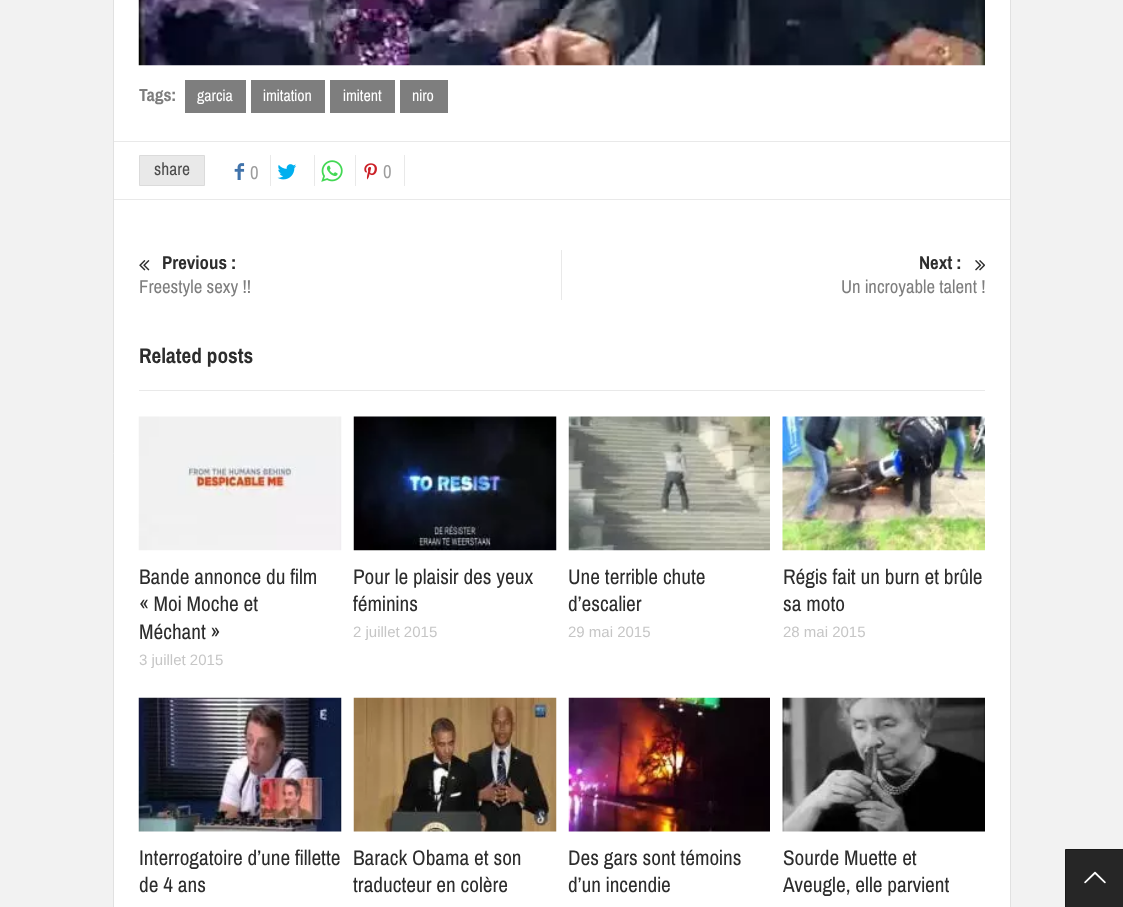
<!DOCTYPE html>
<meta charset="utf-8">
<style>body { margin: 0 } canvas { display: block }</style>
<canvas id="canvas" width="1123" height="907"></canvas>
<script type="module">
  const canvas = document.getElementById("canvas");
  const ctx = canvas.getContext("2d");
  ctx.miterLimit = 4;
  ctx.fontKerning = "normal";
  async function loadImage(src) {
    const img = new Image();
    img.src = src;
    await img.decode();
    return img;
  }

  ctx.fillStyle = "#f2f2f2";
  ctx.fillRect(0, 0, 1123, 907);
  ctx.fillStyle = "#ffffff";
  ctx.beginPath();
  ctx.rect(113.5, -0.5, 897, 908);
  ctx.fill();
  ctx.strokeStyle = "#e1e1e1";
  ctx.stroke();
  ctx.drawImage(await loadImage("img1.png"), 138, 0, 847, 66);
  ctx.font = "bold 17.5px Archivo Narrow";
  ctx.fillStyle = "#7e7e7e";
  ctx.fillText("Tags:", 139, 101);
  ctx.fillRect(185, 80, 61, 33);
  ctx.font = "16px Archivo Narrow";
  ctx.fillStyle = "#ffffff";
  ctx.fillText("garcia", 197, 101);
  ctx.fillStyle = "#7e7e7e";
  ctx.fillRect(251, 80, 74, 33);
  ctx.fillStyle = "#ffffff";
  ctx.fillText("imitation", 263, 101);
  ctx.fillStyle = "#7e7e7e";
  ctx.fillRect(330, 80, 65, 33);
  ctx.fillStyle = "#ffffff";
  ctx.fillText("imitent", 343, 101);
  ctx.fillStyle = "#7e7e7e";
  ctx.fillRect(400, 80, 48, 33);
  ctx.fillStyle = "#ffffff";
  ctx.fillText("niro", 412, 101);
  ctx.fillStyle = "#e9e9e9";
  ctx.fillRect(114, 141, 896, 1);
  ctx.fillRect(114, 199, 896, 1);
  ctx.beginPath();
  ctx.rect(139.5, 155.5, 65, 30);
  ctx.fill();
  ctx.strokeStyle = "#dbdbdb";
  ctx.stroke();
  ctx.font = "17.5px Archivo Narrow";
  ctx.fillStyle = "#4b4b4b";
  ctx.fillText("share", 154, 175);
  ctx.fillStyle = "#e9e9e9";
  ctx.fillRect(270, 155, 1, 31);
  ctx.drawImage(await loadImage("img2.png"), 234, 163, 11, 17);
  ctx.font = "18.75px Archivo Narrow";
  ctx.fillStyle = "#9d9d9d";
  ctx.fillText("0", 250, 179);
  ctx.fillStyle = "#e9e9e9";
  ctx.fillRect(314, 155, 1, 31);
  ctx.drawImage(await loadImage("img3.png"), 277, 164, 20, 16);
  ctx.fillRect(355, 155, 1, 31);
  ctx.drawImage(await loadImage("img4.png"), 321, 160, 22, 22);
  ctx.fillRect(404, 155, 1, 31);
  ctx.drawImage(await loadImage("img5.png"), 364, 163, 13, 17);
  ctx.fillStyle = "#9d9d9d";
  ctx.fillText("0", 383, 178);
  ctx.fillStyle = "#e9e9e9";
  ctx.fillRect(561, 250, 1, 50);
  ctx.drawImage(await loadImage("img6.png"), 139, 260, 11, 11);
  ctx.font = "bold 18.75px Archivo Narrow";
  ctx.fillStyle = "#2d2d2d";
  ctx.fillText("Previous :", 162, 269);
  ctx.font = "18.75px Archivo Narrow";
  ctx.fillStyle = "#7e7e7e";
  ctx.fillText("Freestyle sexy !!", 139, 293);
  ctx.font = "bold 18.75px Archivo Narrow";
  ctx.fillStyle = "#2d2d2d";
  ctx.fillText("Next :", 919, 269);
  ctx.drawImage(await loadImage("img7.png"), 975, 260, 10, 11);
  ctx.font = "18.75px Archivo Narrow";
  ctx.fillStyle = "#7e7e7e";
  ctx.fillText("Un incroyable talent !", 841, 293);
  ctx.fillStyle = "#e9e9e9";
  ctx.fillRect(139, 390, 846, 1);
  ctx.font = "bold 21.25px Archivo Narrow";
  ctx.fillStyle = "#2d2d2d";
  ctx.fillText("Related posts", 139, 363);
  ctx.drawImage(await loadImage("img8.png"), 138, 416, 204, 135);
  ctx.font = "21.25px Archivo Narrow";
  ctx.fillText("Bande annonce du film", 139, 584);
  ctx.fillText("« Moi Moche et", 139, 611);
  ctx.fillText("Méchant »", 139, 639);
  ctx.font = "15px Liberation Sans";
  ctx.fillStyle = "#c6c6c6";
  ctx.fillText("3 juillet 2015", 139, 665);
  ctx.drawImage(await loadImage("img9.png"), 353, 416, 204, 135);
  ctx.font = "21.25px Archivo Narrow";
  ctx.fillStyle = "#2d2d2d";
  ctx.fillText("Pour le plaisir des yeux", 353, 584);
  ctx.fillText("féminins", 353, 611);
  ctx.font = "15px Liberation Sans";
  ctx.fillStyle = "#c6c6c6";
  ctx.fillText("2 juillet 2015", 353, 637);
  ctx.drawImage(await loadImage("img10.png"), 568, 416, 202, 135);
  ctx.font = "21.25px Archivo Narrow";
  ctx.fillStyle = "#2d2d2d";
  ctx.fillText("Une terrible chute", 568, 584);
  ctx.fillText("d’escalier", 568, 611);
  ctx.font = "15px Liberation Sans";
  ctx.fillStyle = "#c6c6c6";
  ctx.fillText("29 mai 2015", 568, 637);
  ctx.drawImage(await loadImage("img11.png"), 782, 416, 203, 135);
  ctx.font = "21.25px Archivo Narrow";
  ctx.fillStyle = "#2d2d2d";
  ctx.fillText("Régis fait un burn et brûle", 783, 584);
  ctx.fillText("sa moto", 783, 611);
  ctx.font = "15px Liberation Sans";
  ctx.fillStyle = "#c6c6c6";
  ctx.fillText("28 mai 2015", 783, 637);
  ctx.drawImage(await loadImage("img12.png"), 138, 697, 204, 135);
  ctx.font = "21.25px Archivo Narrow";
  ctx.fillStyle = "#2d2d2d";
  ctx.fillText("Interrogatoire d’une fillette", 139, 865);
  ctx.fillText("de 4 ans", 139, 892);
  ctx.drawImage(await loadImage("img13.png"), 353, 697, 204, 135);
  ctx.fillText("Barack Obama et son", 353, 865);
  ctx.fillText("traducteur en colère", 353, 892);
  ctx.drawImage(await loadImage("img14.png"), 568, 697, 202, 135);
  ctx.fillText("Des gars sont témoins", 568, 865);
  ctx.fillText("d’un incendie", 568, 892);
  ctx.drawImage(await loadImage("img15.png"), 782, 697, 203, 135);
  ctx.fillText("Sourde Muette et", 783, 865);
  ctx.fillText("Aveugle, elle parvient", 783, 892);
  ctx.fillStyle = "#262626";
  ctx.beginPath();
  ctx.rect(1065.5, 849.5, 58, 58);
  ctx.fill();
  ctx.strokeStyle = "#1a1a1a";
  ctx.stroke();
  ctx.drawImage(await loadImage("img16.png"), 1084, 871, 22, 13);
</script>
